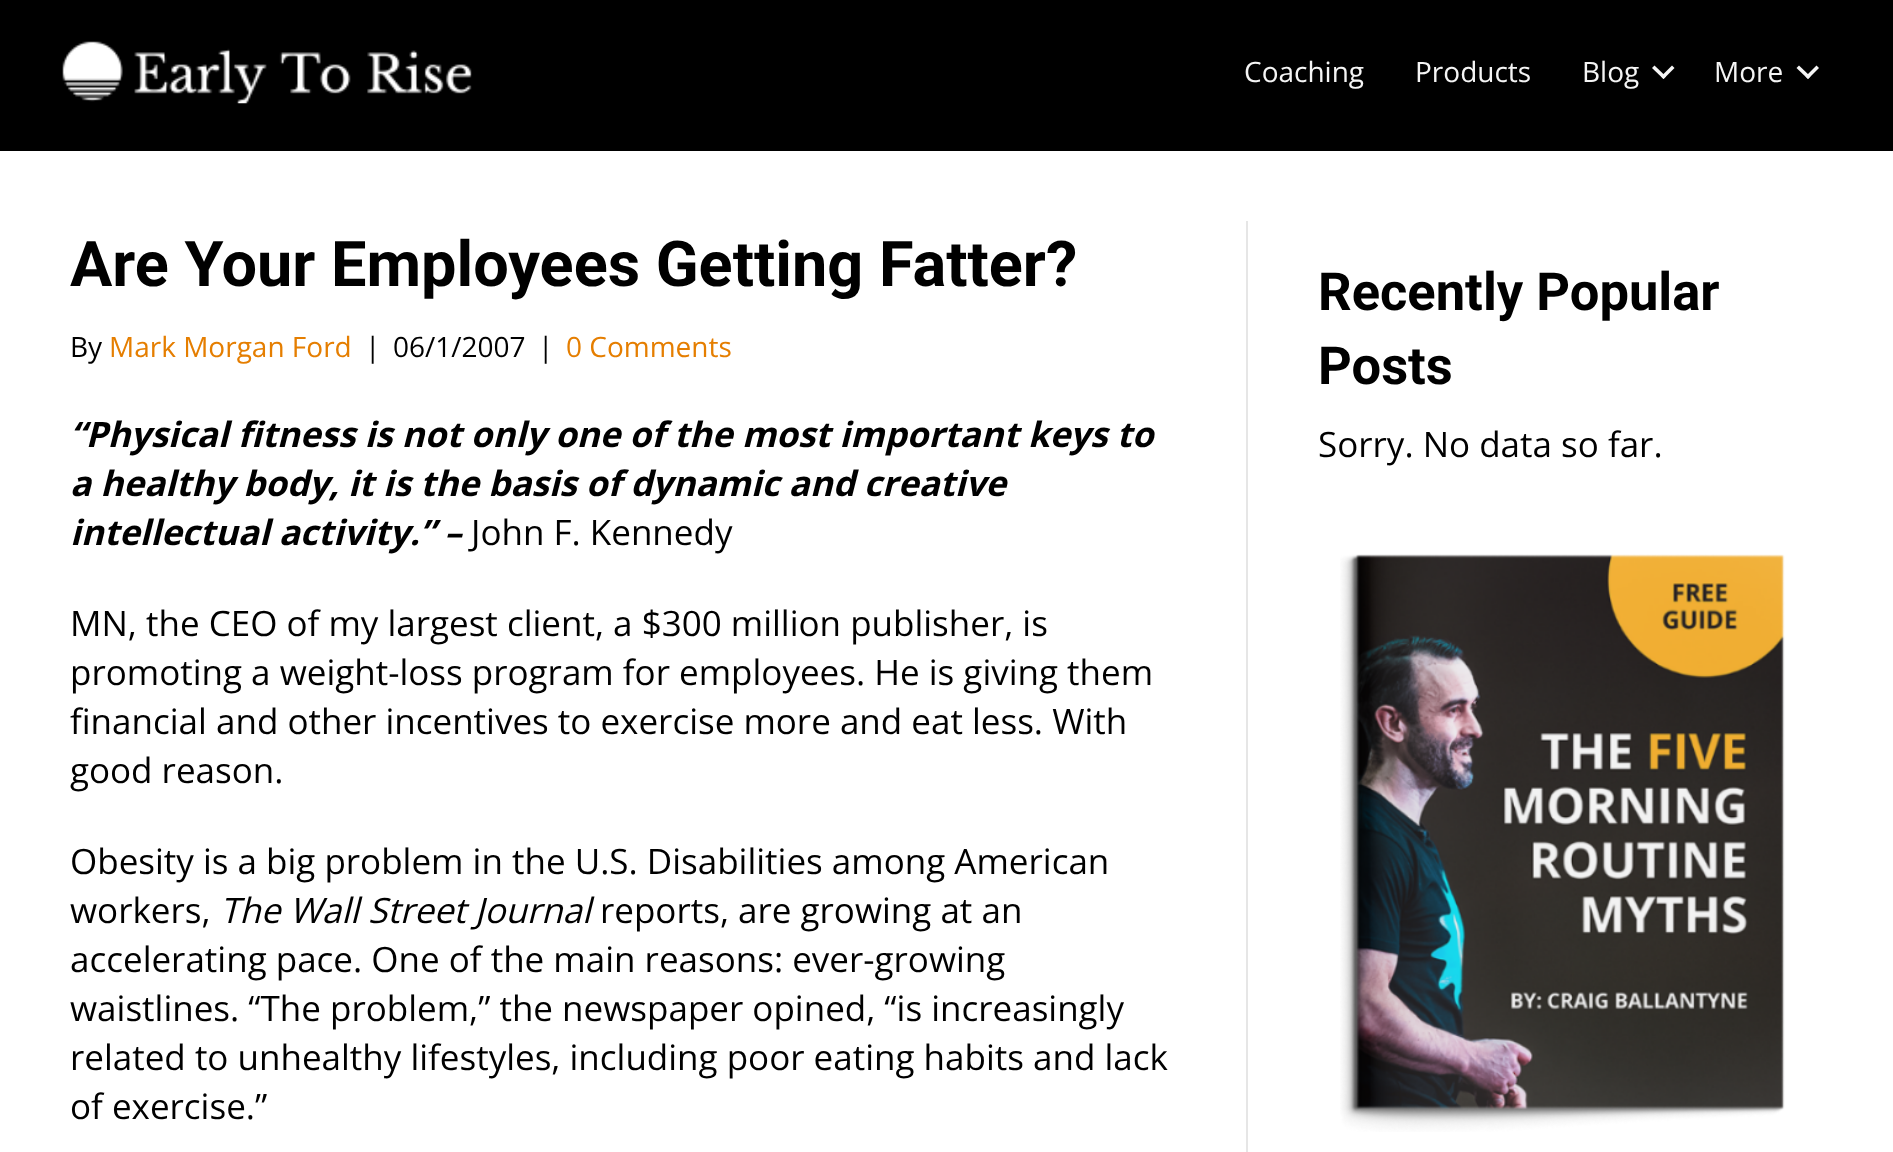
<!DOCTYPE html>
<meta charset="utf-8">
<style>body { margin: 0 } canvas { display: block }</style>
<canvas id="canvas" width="1893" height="1152"></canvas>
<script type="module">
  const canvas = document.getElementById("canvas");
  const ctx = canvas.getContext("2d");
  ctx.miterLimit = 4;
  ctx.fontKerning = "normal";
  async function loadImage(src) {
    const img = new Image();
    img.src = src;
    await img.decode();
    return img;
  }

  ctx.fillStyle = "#ffffff";
  ctx.fillRect(0, 0, 1893, 1152);
  ctx.fillStyle = "#000000";
  ctx.fillRect(0, 0, 1893, 151);
  ctx.drawImage(await loadImage("img1.png"), 62, 41, 410, 63);
  ctx.font = "28px Open Sans";
  ctx.fillStyle = "#f5f5f5";
  ctx.fillText("Coaching", 1244, 82);
  ctx.fillText("Products", 1415, 82);
  ctx.fillText("Blog", 1582, 82);
  ctx.beginPath();
  ctx.moveTo(1672, 65.5);
  ctx.lineTo(1674.5, 68);
  ctx.lineTo(1663.5, 79);
  ctx.lineTo(1661, 76.5);
  ctx.closePath();
  ctx.fill();
  ctx.beginPath();
  ctx.moveTo(1654.5, 65.5);
  ctx.lineTo(1666, 76.5);
  ctx.lineTo(1663.5, 79);
  ctx.lineTo(1652, 68);
  ctx.closePath();
  ctx.fill();
  ctx.fillText("More", 1714, 82);
  ctx.beginPath();
  ctx.moveTo(1816.5, 65.5);
  ctx.lineTo(1819, 68);
  ctx.lineTo(1808, 79);
  ctx.lineTo(1805.5, 76.5);
  ctx.closePath();
  ctx.fill();
  ctx.beginPath();
  ctx.moveTo(1799, 65.5);
  ctx.lineTo(1810.5, 76.5);
  ctx.lineTo(1808, 79);
  ctx.lineTo(1796.5, 68);
  ctx.closePath();
  ctx.fill();
  ctx.fillStyle = "#e6e6e6";
  ctx.fillRect(1246, 221, 2, 931);
  ctx.font = "bold 63px Roboto";
  ctx.fillStyle = "#000000";
  ctx.fillText("Are Your Employees Getting Fatter?", 70, 286);
  ctx.font = "28px Open Sans";
  ctx.fillText("By", 70, 357);
  ctx.fillStyle = "#e57e00";
  ctx.fillText("Mark Morgan Ford", 109, 357);
  ctx.fillStyle = "#000000";
  ctx.fillText("|", 365, 357);
  ctx.fillText("06/1/2007", 393, 357);
  ctx.fillText("|", 538, 357);
  ctx.fillStyle = "#e57e00";
  ctx.fillText("0 Comments", 566, 357);
  ctx.font = "italic bold 35px Open Sans";
  ctx.fillStyle = "#000000";
  ctx.fillText("“Physical fitness is not only one of the most important keys to", 70, 447);
  ctx.fillText("a healthy body, it is the basis of dynamic and creative", 70, 496);
  ctx.fillText("intellectual activity.” –", 70, 545);
  ctx.font = "35px Open Sans";
  ctx.fillText("John F. Kennedy", 471, 545);
  ctx.fillText("MN, the CEO of my largest client, a $300 million publisher, is", 70, 636);
  ctx.fillText("promoting a weight-loss program for employees. He is giving them", 70, 685);
  ctx.fillText("financial and other incentives to exercise more and eat less. With", 70, 734);
  ctx.fillText("good reason.", 70, 783);
  ctx.fillText("Obesity is a big problem in the U.S. Disabilities among American", 70, 874);
  ctx.fillText("workers,", 70, 923);
  ctx.font = "italic 35px Open Sans";
  ctx.fillText("The Wall Street Journal", 220, 923);
  ctx.font = "35px Open Sans";
  ctx.fillText("reports, are growing at an", 600, 923);
  ctx.fillText("accelerating pace. One of the main reasons: ever-growing", 70, 972);
  ctx.fillText("waistlines. “The problem,” the newspaper opined, “is increasingly", 70, 1021);
  ctx.fillText("related to unhealthy lifestyles, including poor eating habits and lack", 70, 1070);
  ctx.fillText("of exercise.”", 70, 1119);
  ctx.font = "bold 52.5px Roboto";
  ctx.fillText("Recently Popular", 1318, 310);
  ctx.fillText("Posts", 1318, 384);
  ctx.font = "35px Open Sans";
  ctx.fillText("Sorry. No data so far.", 1318, 457);
  ctx.drawImage(await loadImage("img2.png"), 1340, 554, 445, 578);
</script>
